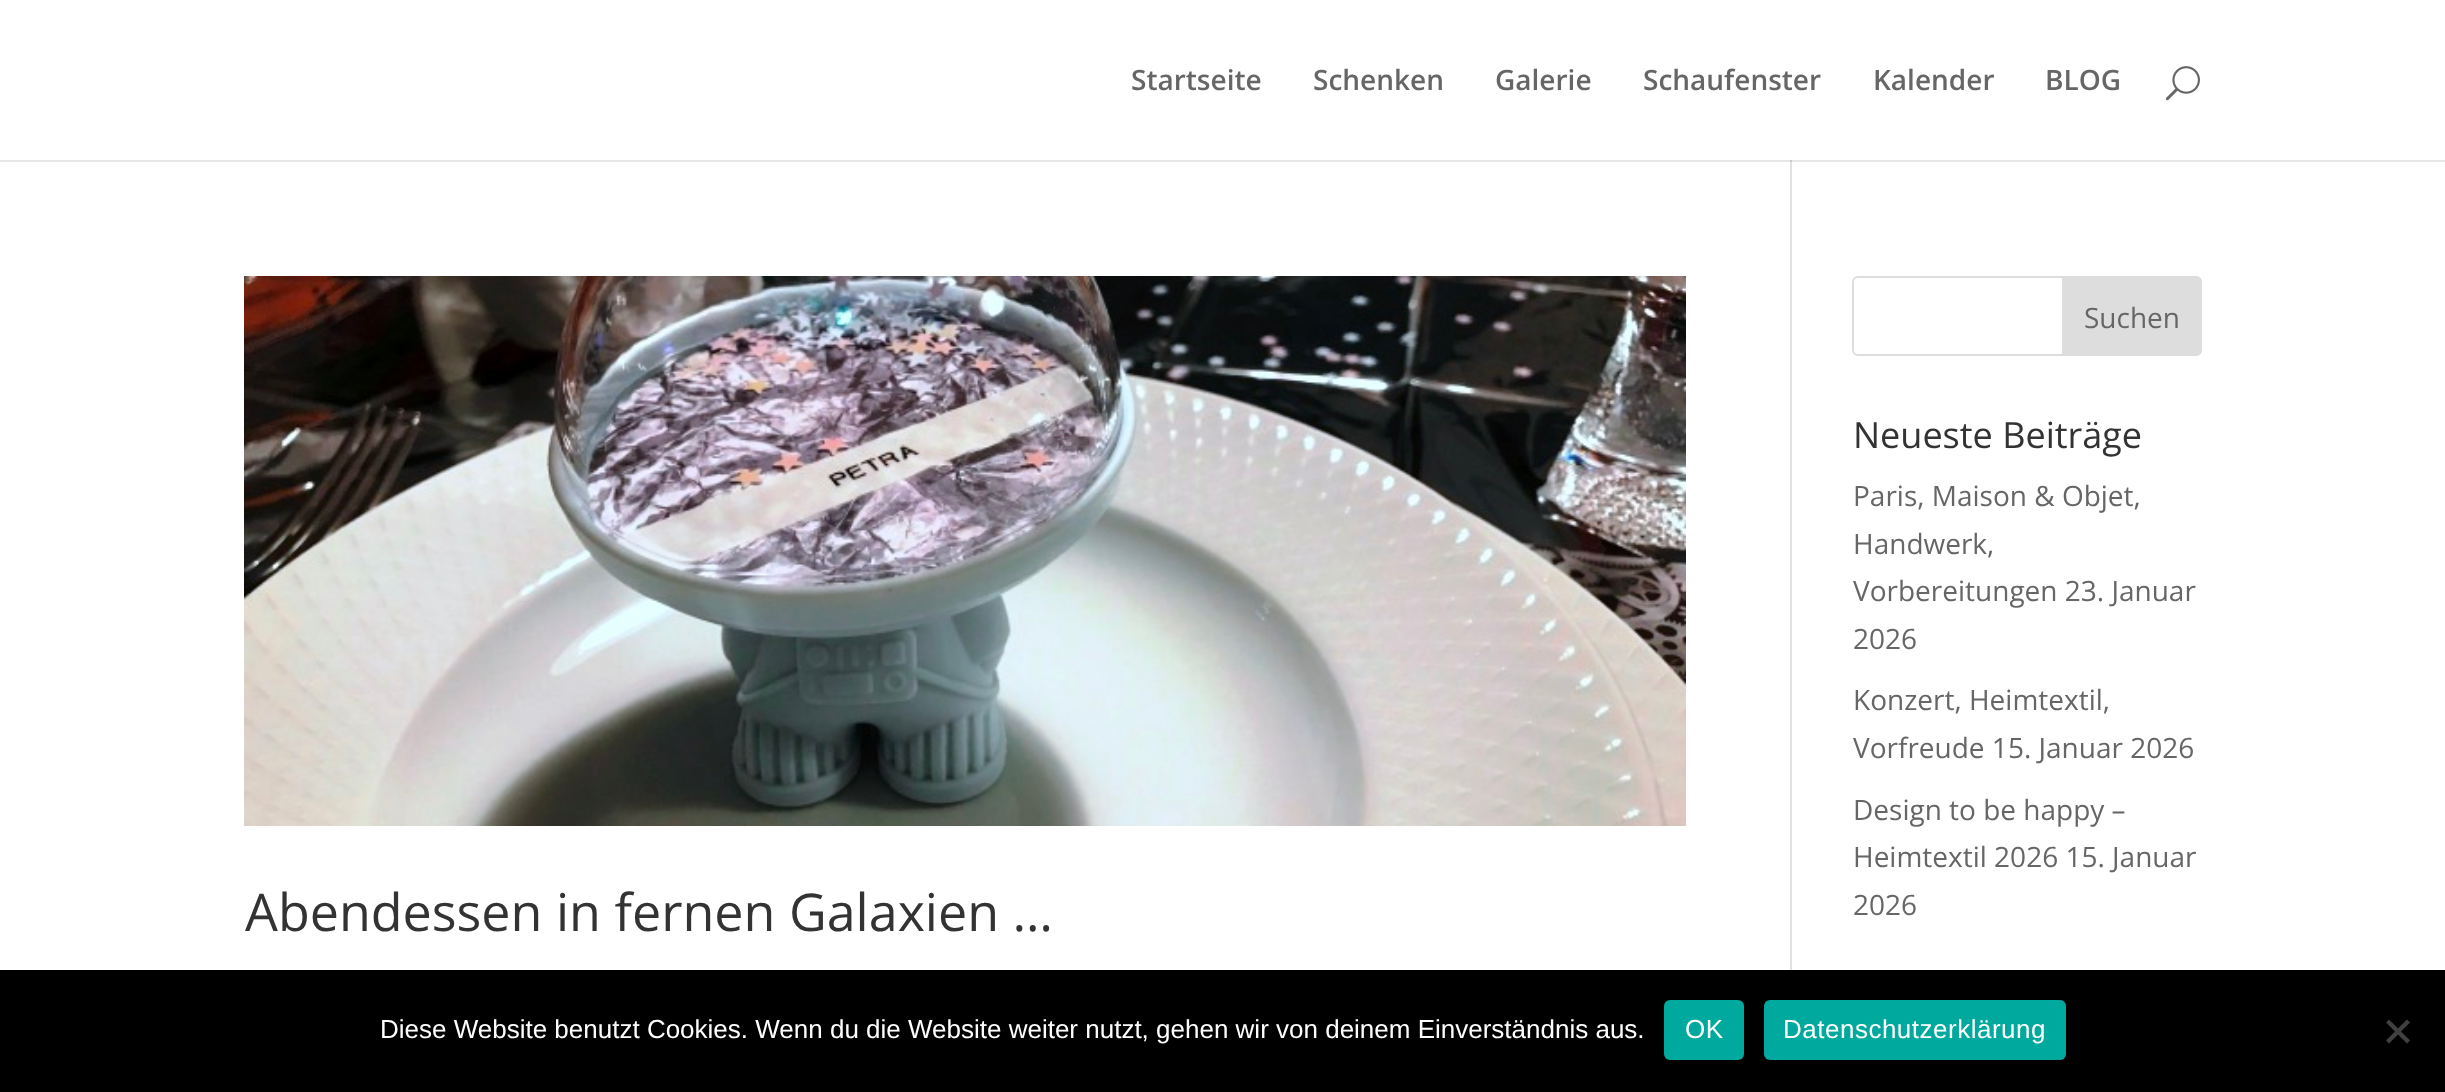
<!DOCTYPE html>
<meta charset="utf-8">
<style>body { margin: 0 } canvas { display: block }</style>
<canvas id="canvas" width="2445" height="1092"></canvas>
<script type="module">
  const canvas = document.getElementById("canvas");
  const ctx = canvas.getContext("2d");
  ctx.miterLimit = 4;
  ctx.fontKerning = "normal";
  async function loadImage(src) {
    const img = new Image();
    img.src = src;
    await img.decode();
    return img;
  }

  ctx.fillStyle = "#ffffff";
  ctx.fillRect(0, 0, 2445, 1092);
  ctx.fillStyle = "#e6e6e6";
  ctx.fillRect(0, 160, 2445, 2);
  ctx.font = "600 28px Open Sans";
  ctx.fillStyle = "#666666";
  ctx.fillText("Startseite", 1131, 90);
  ctx.fillText("Schenken", 1313, 90);
  ctx.fillText("Galerie", 1495, 90);
  ctx.fillText("Schaufenster", 1643, 90);
  ctx.fillText("Kalender", 1873, 90);
  ctx.fillText("BLOG", 2045, 90);
  ctx.drawImage(await loadImage("img1.png"), 2165, 66, 35, 35);
  ctx.fillStyle = "#e2e2e2";
  ctx.fillRect(1790, 160, 2, 810);
  ctx.fillStyle = "#cbcbcb";
  ctx.fillRect(1790, 160, 2, 2);
  ctx.drawImage(await loadImage("img2.png"), 244, 276, 1442, 550);
  ctx.font = "52px Open Sans";
  ctx.fillStyle = "#333333";
  ctx.fillText("Abendessen in fernen Galaxien …", 245, 931);
  ctx.beginPath();
  ctx.roundRect(1853, 277, 348, 78, 5);
  ctx.strokeStyle = "#dddddd";
  ctx.lineWidth = 2;
  ctx.stroke();
  ctx.fillStyle = "#dddddd";
  ctx.beginPath();
  ctx.roundRect(2063, 277, 138, 78, [0, 5, 5, 0]);
  ctx.fill();
  ctx.stroke();
  ctx.font = "28px Open Sans";
  ctx.fillStyle = "#666666";
  ctx.fillText("Suchen", 2084, 328);
  ctx.font = "36px Open Sans";
  ctx.fillStyle = "#333333";
  ctx.fillText("Neueste Beiträge", 1853, 448);
  ctx.font = "28px Open Sans";
  ctx.fillStyle = "#666666";
  ctx.fillText("Paris, Maison & Objet,", 1853, 506);
  ctx.fillText("Handwerk,", 1853, 554);
  ctx.fillText("Vorbereitungen 23. Januar", 1853, 601);
  ctx.fillText("2026", 1853, 649);
  ctx.fillText("Konzert, Heimtextil,", 1853, 710);
  ctx.fillText("Vorfreude 15. Januar 2026", 1853, 758);
  ctx.fillText("Design to be happy –", 1853, 820);
  ctx.fillText("Heimtextil 2026 15. Januar", 1853, 867);
  ctx.fillText("2026", 1853, 915);
  ctx.fillStyle = "#000000";
  ctx.fillRect(0, 970, 2445, 122);
  ctx.font = "26px Liberation Sans";
  ctx.fillStyle = "#ffffff";
  ctx.fillText("Diese Website benutzt Cookies. Wenn du die Website weiter nutzt, gehen wir von deinem Einverständnis aus.", 380, 1038);
  ctx.fillStyle = "#00a99d";
  ctx.beginPath();
  ctx.roundRect(1664, 1000, 80, 60, 6);
  ctx.fill();
  ctx.letterSpacing = "0.5px";
  ctx.fillStyle = "#ffffff";
  ctx.fillText("OK", 1685, 1038);
  ctx.fillStyle = "#00a99d";
  ctx.beginPath();
  ctx.roundRect(1764, 1000, 302, 60, 6);
  ctx.fill();
  ctx.fillStyle = "#ffffff";
  ctx.fillText("Datenschutzerklärung", 1783, 1038);
  ctx.fillStyle = "#404040";
  ctx.beginPath();
  ctx.moveTo(2407, 1019.5);
  ctx.lineTo(2410, 1022.5);
  ctx.lineTo(2389, 1043.5);
  ctx.lineTo(2386, 1040.5);
  ctx.closePath();
  ctx.fill();
  ctx.beginPath();
  ctx.moveTo(2386, 1022.5);
  ctx.lineTo(2389, 1019.5);
  ctx.lineTo(2410, 1040.5);
  ctx.lineTo(2407, 1043.5);
  ctx.closePath();
  ctx.fill();
</script>
